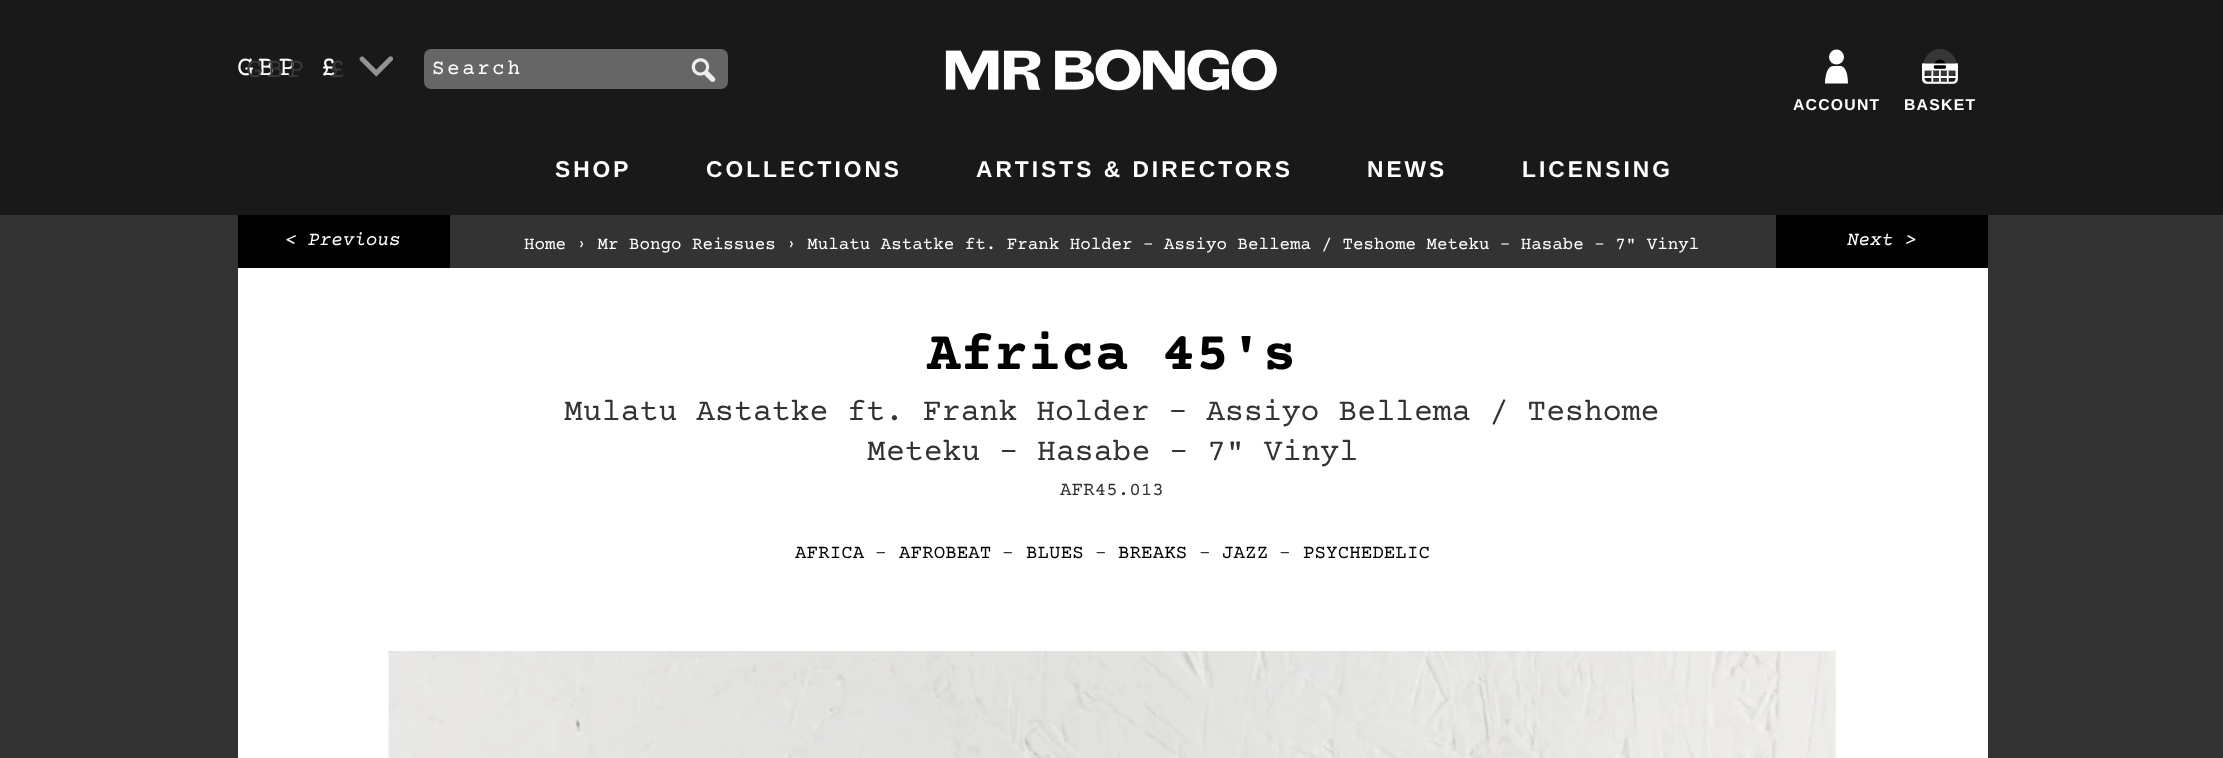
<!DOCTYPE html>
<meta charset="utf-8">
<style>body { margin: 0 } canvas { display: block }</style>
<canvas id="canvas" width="2223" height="758"></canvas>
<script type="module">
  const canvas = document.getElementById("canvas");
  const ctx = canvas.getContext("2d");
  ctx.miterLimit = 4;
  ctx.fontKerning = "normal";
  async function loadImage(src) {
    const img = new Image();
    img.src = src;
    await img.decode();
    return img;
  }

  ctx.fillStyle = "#333333";
  ctx.fillRect(0, 0, 2223, 758);
  ctx.fillStyle = "#191919";
  ctx.fillRect(0, 0, 2223, 215);
  ctx.drawImage(await loadImage("img1.png"), 359, 56, 35, 21);
  ctx.letterSpacing = "4px";
  ctx.font = "28px Courier Prime";
  ctx.fillStyle = "#ffffff";
  ctx.fillText("GBP £", 237, 75);
  ctx.fillStyle = "#393939";
  ctx.fillText("GBP £", 246, 77);
  ctx.fillStyle = "#666666";
  ctx.beginPath();
  ctx.roundRect(424, 49, 304, 40, 7);
  ctx.fill();
  ctx.letterSpacing = "2.5px";
  ctx.font = "21px Courier Prime";
  ctx.fillStyle = "#ffffff";
  ctx.fillText("Search", 432, 74);
  ctx.drawImage(await loadImage("img2.png"), 691, 58, 25, 24);
  ctx.drawImage(await loadImage("img3.png"), 945, 49, 332, 42);
  ctx.beginPath();
  ctx.arc(1836.5, 57, 7.5, 0, Math.PI * 2);
  ctx.fill();
  ctx.beginPath();
  ctx.moveTo(1825, 83.5);
  ctx.bezierCurveTo(1825, 83.5, 1825, 66, 1833.5, 66);
  ctx.lineTo(1839.5, 66);
  ctx.bezierCurveTo(1839.5, 66, 1848, 64, 1848, 83.5);
  ctx.closePath();
  ctx.fill("evenodd");
  ctx.letterSpacing = "1.25px";
  ctx.font = "bold 15.75px Liberation Sans";
  ctx.fillText("ACCOUNT", 1793, 110);
  ctx.drawImage(await loadImage("img4.png"), 1922, 49, 36, 35);
  ctx.fillText("BASKET", 1904, 110);
  ctx.letterSpacing = "3px";
  ctx.font = "bold 22.75px Liberation Sans";
  ctx.fillText("SHOP", 555, 177);
  ctx.fillText("COLLECTIONS", 706, 177);
  ctx.fillText("ARTISTS & DIRECTORS", 976, 177);
  ctx.fillText("NEWS", 1367, 177);
  ctx.fillText("LICENSING", 1522, 177);
  ctx.fillStyle = "#000000";
  ctx.fillRect(238, 215, 212, 53);
  ctx.letterSpacing = "0px";
  ctx.font = "italic 19.25px Courier Prime";
  ctx.fillStyle = "#ffffff";
  ctx.fillText("< Previous", 285, 245);
  ctx.font = "17.5px Courier Prime";
  ctx.fillText("Home › Mr Bongo Reissues › Mulatu Astatke ft. Frank Holder – Assiyo Bellema / Teshome Meteku – Hasabe – 7\" Vinyl", 524, 249);
  ctx.fillStyle = "#000000";
  ctx.fillRect(1776, 215, 212, 53);
  ctx.font = "italic 19.25px Courier Prime";
  ctx.fillStyle = "#ffffff";
  ctx.fillText("Next >", 1847, 245);
  ctx.fillRect(238, 268, 1750, 490);
  ctx.font = "bold 56px Courier Prime";
  ctx.fillStyle = "#000000";
  ctx.fillText("Africa 45's", 927, 369);
  ctx.font = "31.5px Courier Prime";
  ctx.fillStyle = "#333333";
  ctx.fillText("Mulatu Astatke ft. Frank Holder – Assiyo Bellema / Teshome", 564, 420);
  ctx.fillText("Meteku – Hasabe – 7\" Vinyl", 867, 460);
  ctx.font = "19.25px Courier Prime";
  ctx.fillText("AFR45.013", 1060, 495);
  ctx.fillStyle = "#000000";
  ctx.fillText("AFRICA", 795, 558);
  ctx.fillStyle = "#333333";
  ctx.fillText("-", 875, 558);
  ctx.fillStyle = "#000000";
  ctx.fillText("AFROBEAT", 899, 558);
  ctx.fillStyle = "#333333";
  ctx.fillText("-", 1002, 558);
  ctx.fillStyle = "#000000";
  ctx.fillText("BLUES", 1026, 558);
  ctx.fillStyle = "#333333";
  ctx.fillText("-", 1095, 558);
  ctx.fillStyle = "#000000";
  ctx.fillText("BREAKS", 1118, 558);
  ctx.fillStyle = "#333333";
  ctx.fillText("-", 1199, 558);
  ctx.fillStyle = "#000000";
  ctx.fillText("JAZZ", 1222, 558);
  ctx.fillStyle = "#333333";
  ctx.fillText("-", 1279, 558);
  ctx.fillStyle = "#000000";
  ctx.fillText("PSYCHEDELIC", 1303, 558);
  ctx.drawImage(await loadImage("img5.png"), 388, 651, 1448, 107);
</script>
